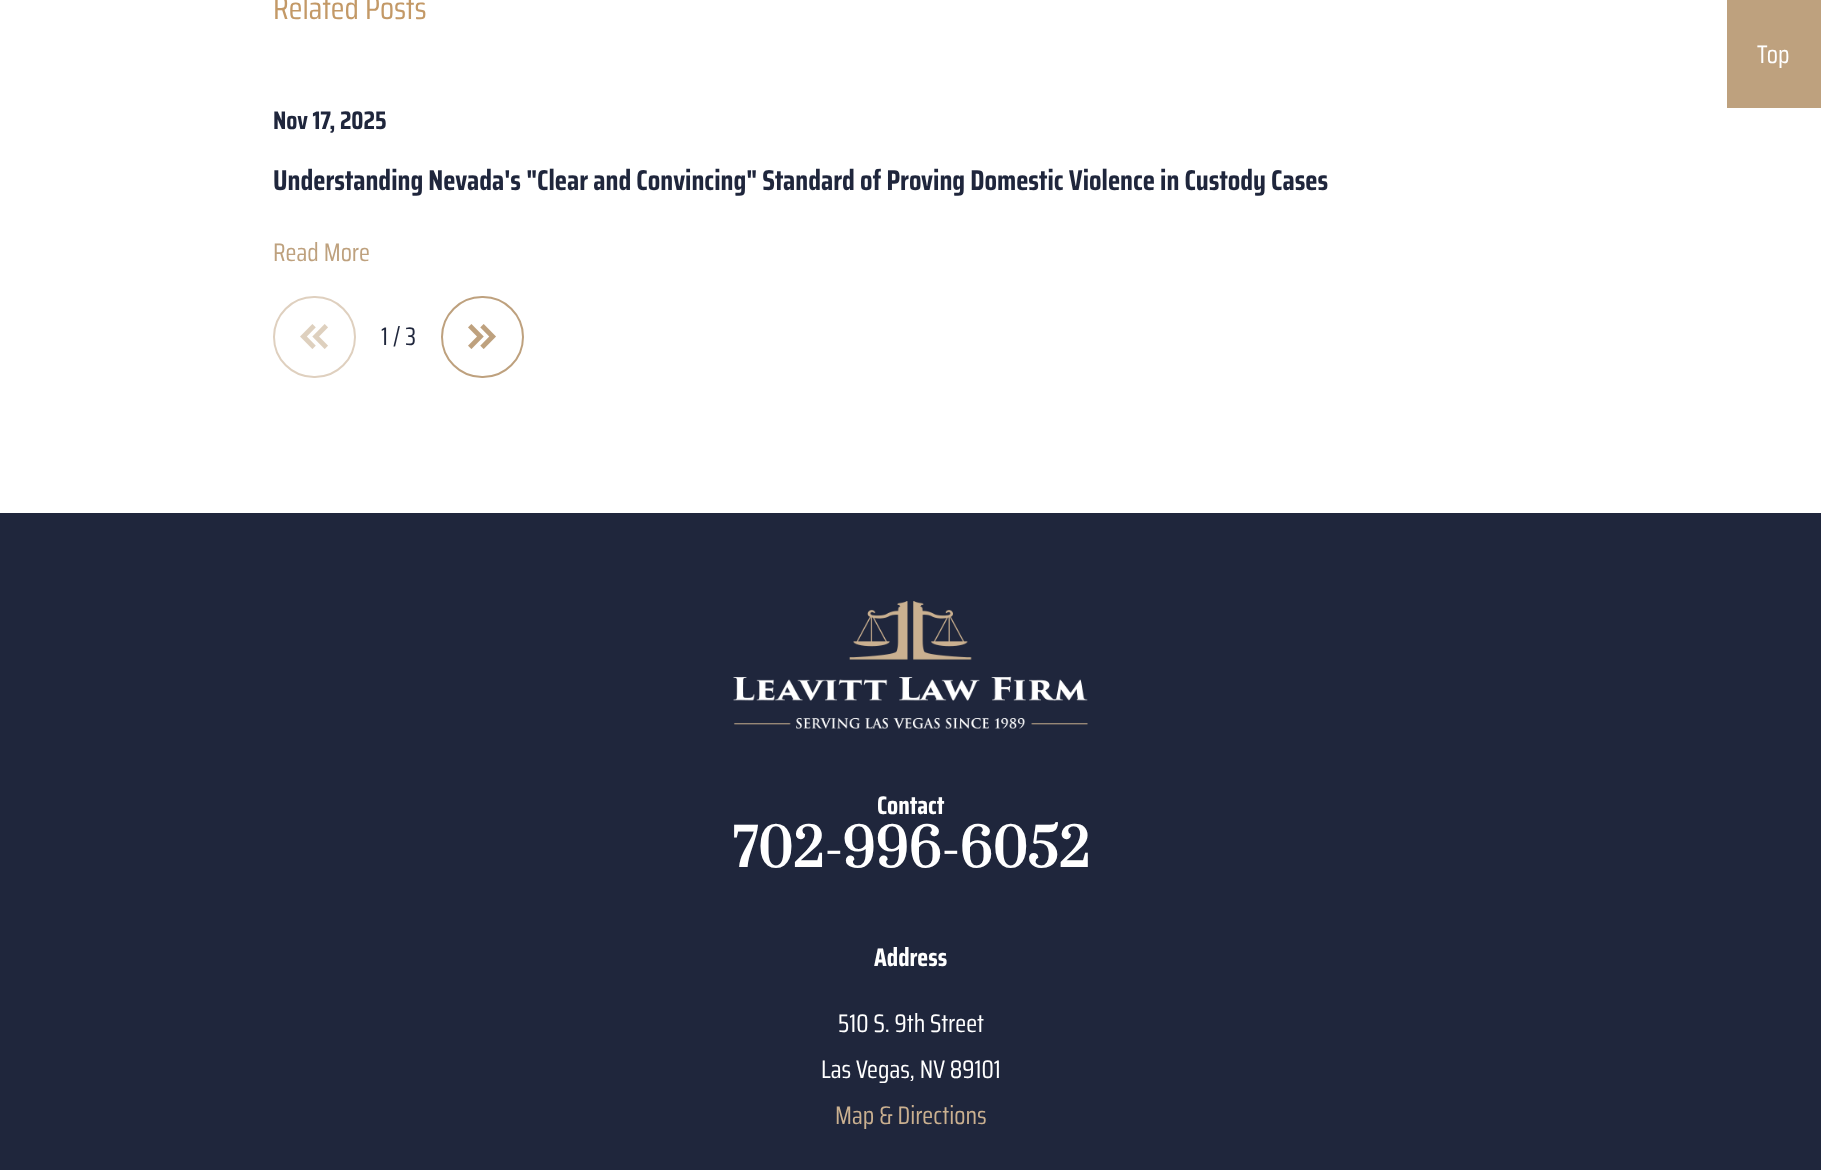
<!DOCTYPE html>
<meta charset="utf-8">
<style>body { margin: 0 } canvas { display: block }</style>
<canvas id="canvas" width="1821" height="1170"></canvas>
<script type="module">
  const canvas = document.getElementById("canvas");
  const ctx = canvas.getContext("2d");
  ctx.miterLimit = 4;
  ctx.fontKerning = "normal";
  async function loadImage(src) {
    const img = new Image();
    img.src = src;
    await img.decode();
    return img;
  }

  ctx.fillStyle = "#ffffff";
  ctx.fillRect(0, 0, 1821, 1170);
  ctx.font = "32px Saira Condensed";
  ctx.fillStyle = "#c39967";
  ctx.fillText("Related Posts", 273, 19);
  ctx.font = "bold 25.5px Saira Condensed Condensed";
  ctx.fillStyle = "#1f263c";
  ctx.fillText("Nov 17, 2025", 273, 129);
  ctx.font = "bold 28.7px Saira Condensed Condensed";
  ctx.fillText("Understanding Nevada's \"Clear and Convincing\" Standard of Proving Domestic Violence in Custody Cases", 273, 190);
  ctx.font = "25.5px Saira Condensed";
  ctx.fillStyle = "#bea17e";
  ctx.fillText("Read More", 273, 261);
  ctx.beginPath();
  ctx.roundRect(274, 297, 81, 80, 40);
  ctx.strokeStyle = "#dfd0bf";
  ctx.lineWidth = 2;
  ctx.stroke();
  ctx.drawImage(await loadImage("img1.png"), 300, 324, 28, 25);
  ctx.fillStyle = "#1f263c";
  ctx.fillText("1 / 3", 381, 345);
  ctx.beginPath();
  ctx.roundRect(442, 297, 81, 80, 40);
  ctx.strokeStyle = "#bea17e";
  ctx.stroke();
  ctx.drawImage(await loadImage("img2.png"), 468, 324, 28, 25);
  ctx.fillStyle = "#bea17e";
  ctx.fillRect(1727, 0, 94, 108);
  ctx.fillStyle = "#ffffff";
  ctx.fillText("Top", 1757, 63);
  ctx.fillStyle = "#1f263c";
  ctx.fillRect(0, 513, 1821, 657);
  ctx.drawImage(await loadImage("img3.png"), 733, 601, 355, 128);
  ctx.font = "bold 25.5px Saira Condensed Condensed";
  ctx.fillStyle = "#ffffff";
  ctx.fillText("Contact", 877, 814);
  ctx.font = "bold 51px Prata";
  ctx.fillText("702-996-6052", 732, 867);
  ctx.font = "bold 25.5px Saira Condensed Condensed";
  ctx.fillText("Address", 874, 966);
  ctx.font = "25.5px Saira Condensed";
  ctx.fillText("510 S. 9th Street", 838, 1032);
  ctx.fillText("Las Vegas, NV 89101", 821, 1078);
  ctx.fillStyle = "#cab090";
  ctx.fillText("Map & Directions", 835, 1124);
</script>
